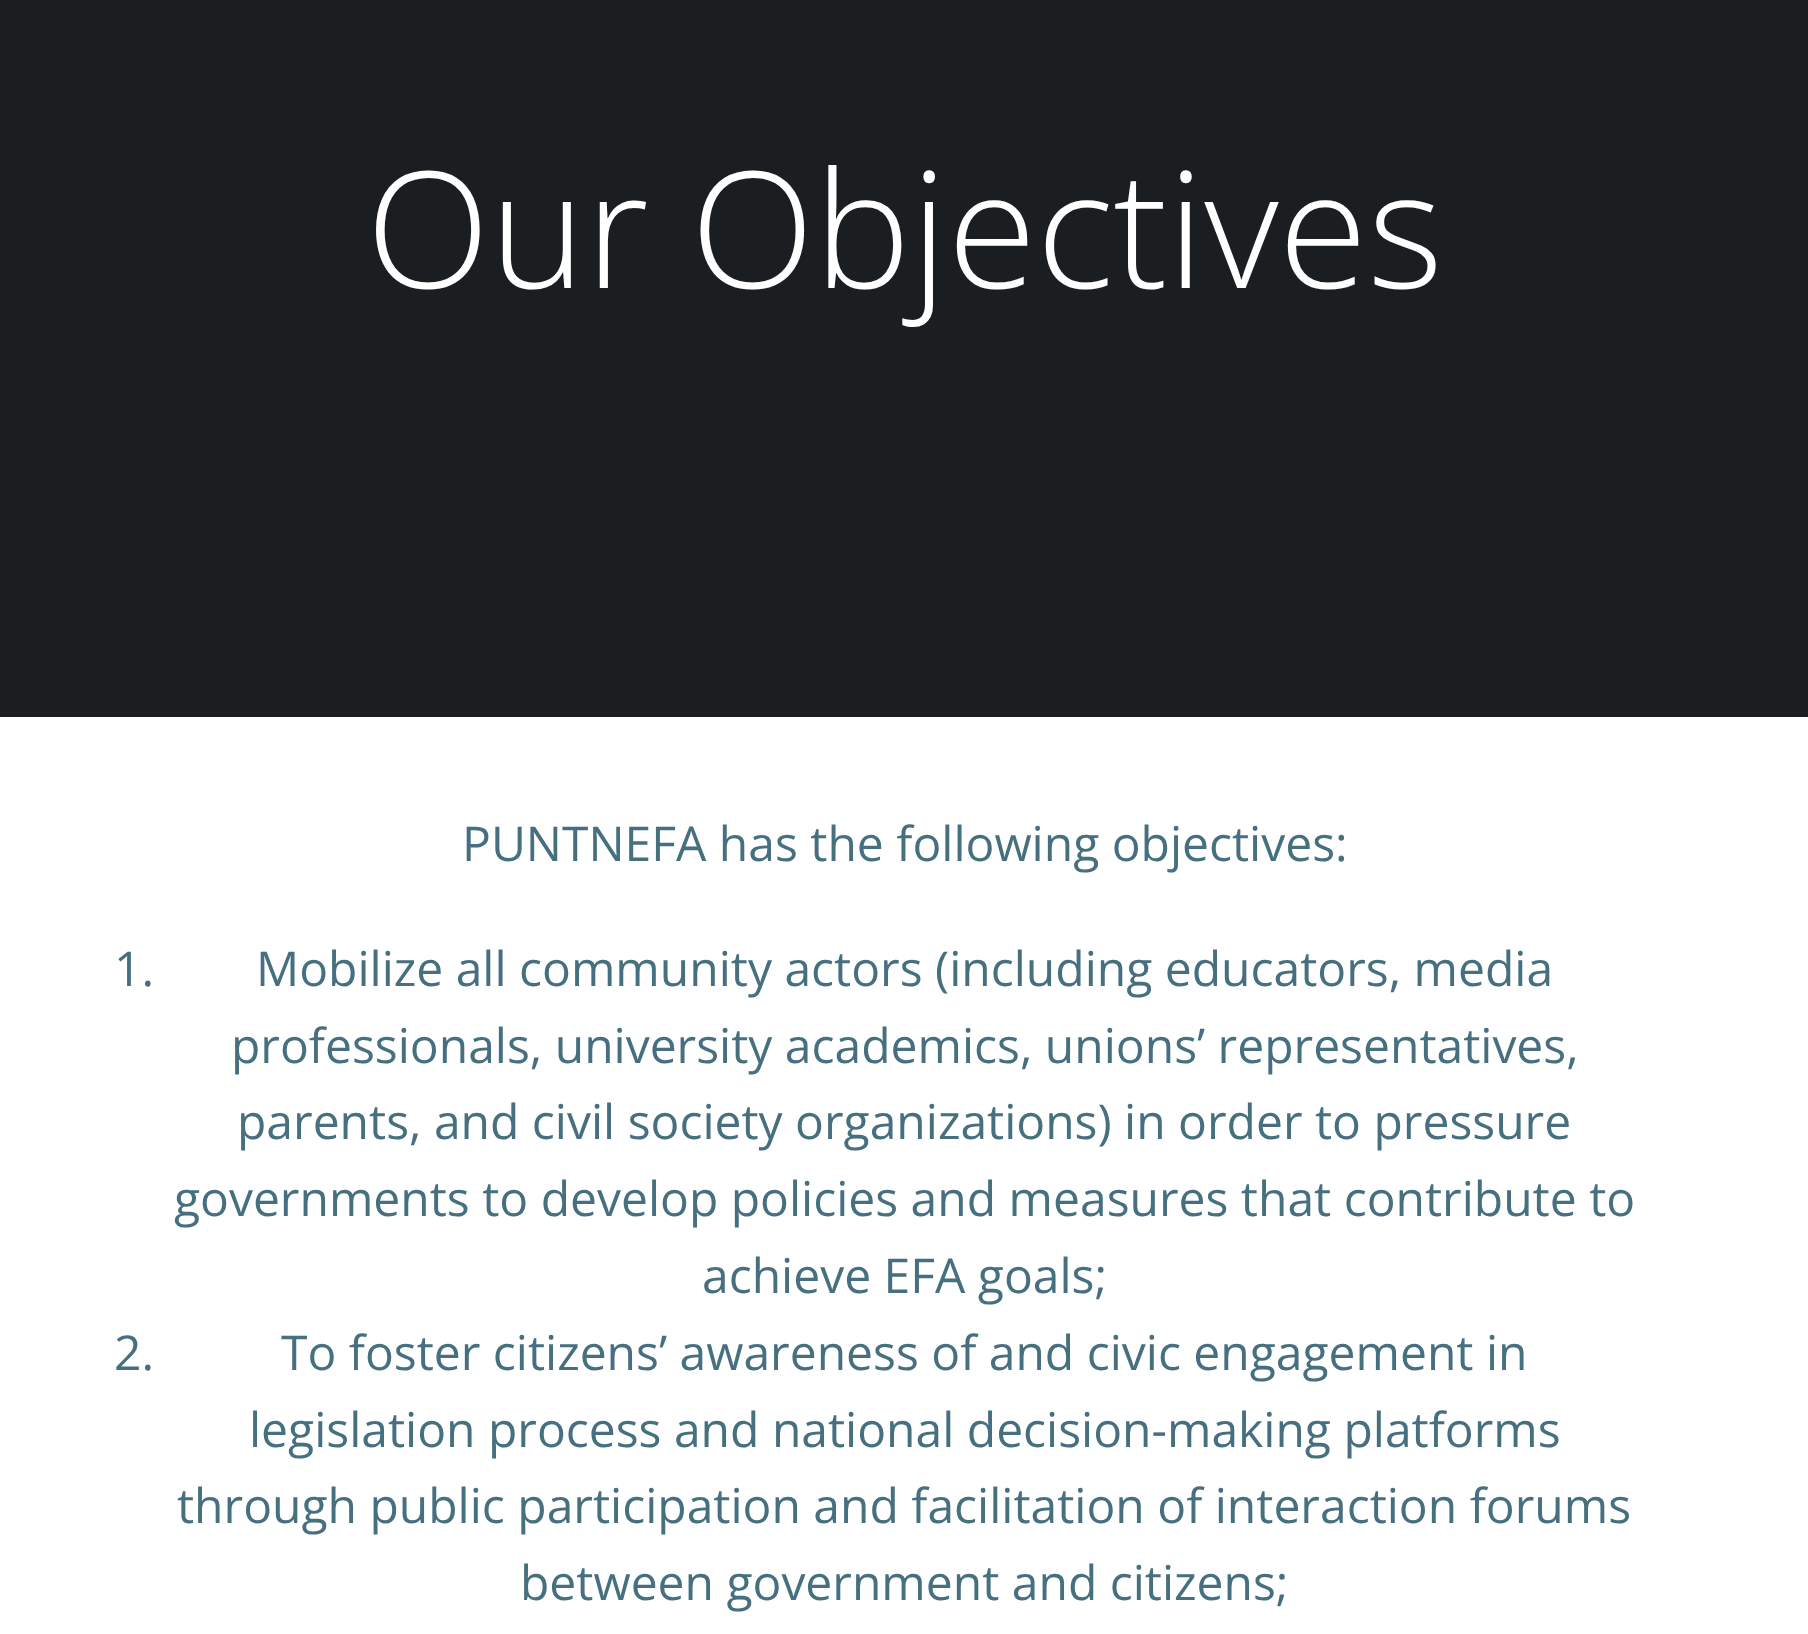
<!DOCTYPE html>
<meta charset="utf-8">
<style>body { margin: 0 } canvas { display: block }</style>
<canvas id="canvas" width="1808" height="1634"></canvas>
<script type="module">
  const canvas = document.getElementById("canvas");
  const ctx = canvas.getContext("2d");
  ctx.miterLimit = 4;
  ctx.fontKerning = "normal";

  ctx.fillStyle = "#ffffff";
  ctx.fillRect(0, 0, 1808, 1634);
  ctx.fillStyle = "#1a1e20";
  ctx.fillRect(0, 0, 1808, 717);
  ctx.font = "300 162px Open Sans";
  ctx.fillStyle = "#ffffff";
  ctx.fillText("Our Objectives", 366, 288);
  ctx.font = "48px Open Sans";
  ctx.fillStyle = "#46707f";
  ctx.fillText("PUNTNEFA has the following objectives:", 462, 861);
  ctx.fillText("1.", 114, 986);
  ctx.fillText("Mobilize all community actors (including educators, media", 256, 986);
  ctx.fillText("professionals, university academics, unions’ representatives,", 231, 1063);
  ctx.fillText("parents, and civil society organizations) in order to pressure", 237, 1139);
  ctx.fillText("governments to develop policies and measures that contribute to", 174, 1216);
  ctx.fillText("achieve EFA goals;", 702, 1293);
  ctx.fillText("2.", 114, 1370);
  ctx.fillText("To foster citizens’ awareness of and civic engagement in", 281, 1370);
  ctx.fillText("legislation process and national decision-making platforms", 249, 1447);
  ctx.fillText("through public participation and facilitation of interaction forums", 177, 1523);
  ctx.fillText("between government and citizens;", 520, 1600);
</script>
